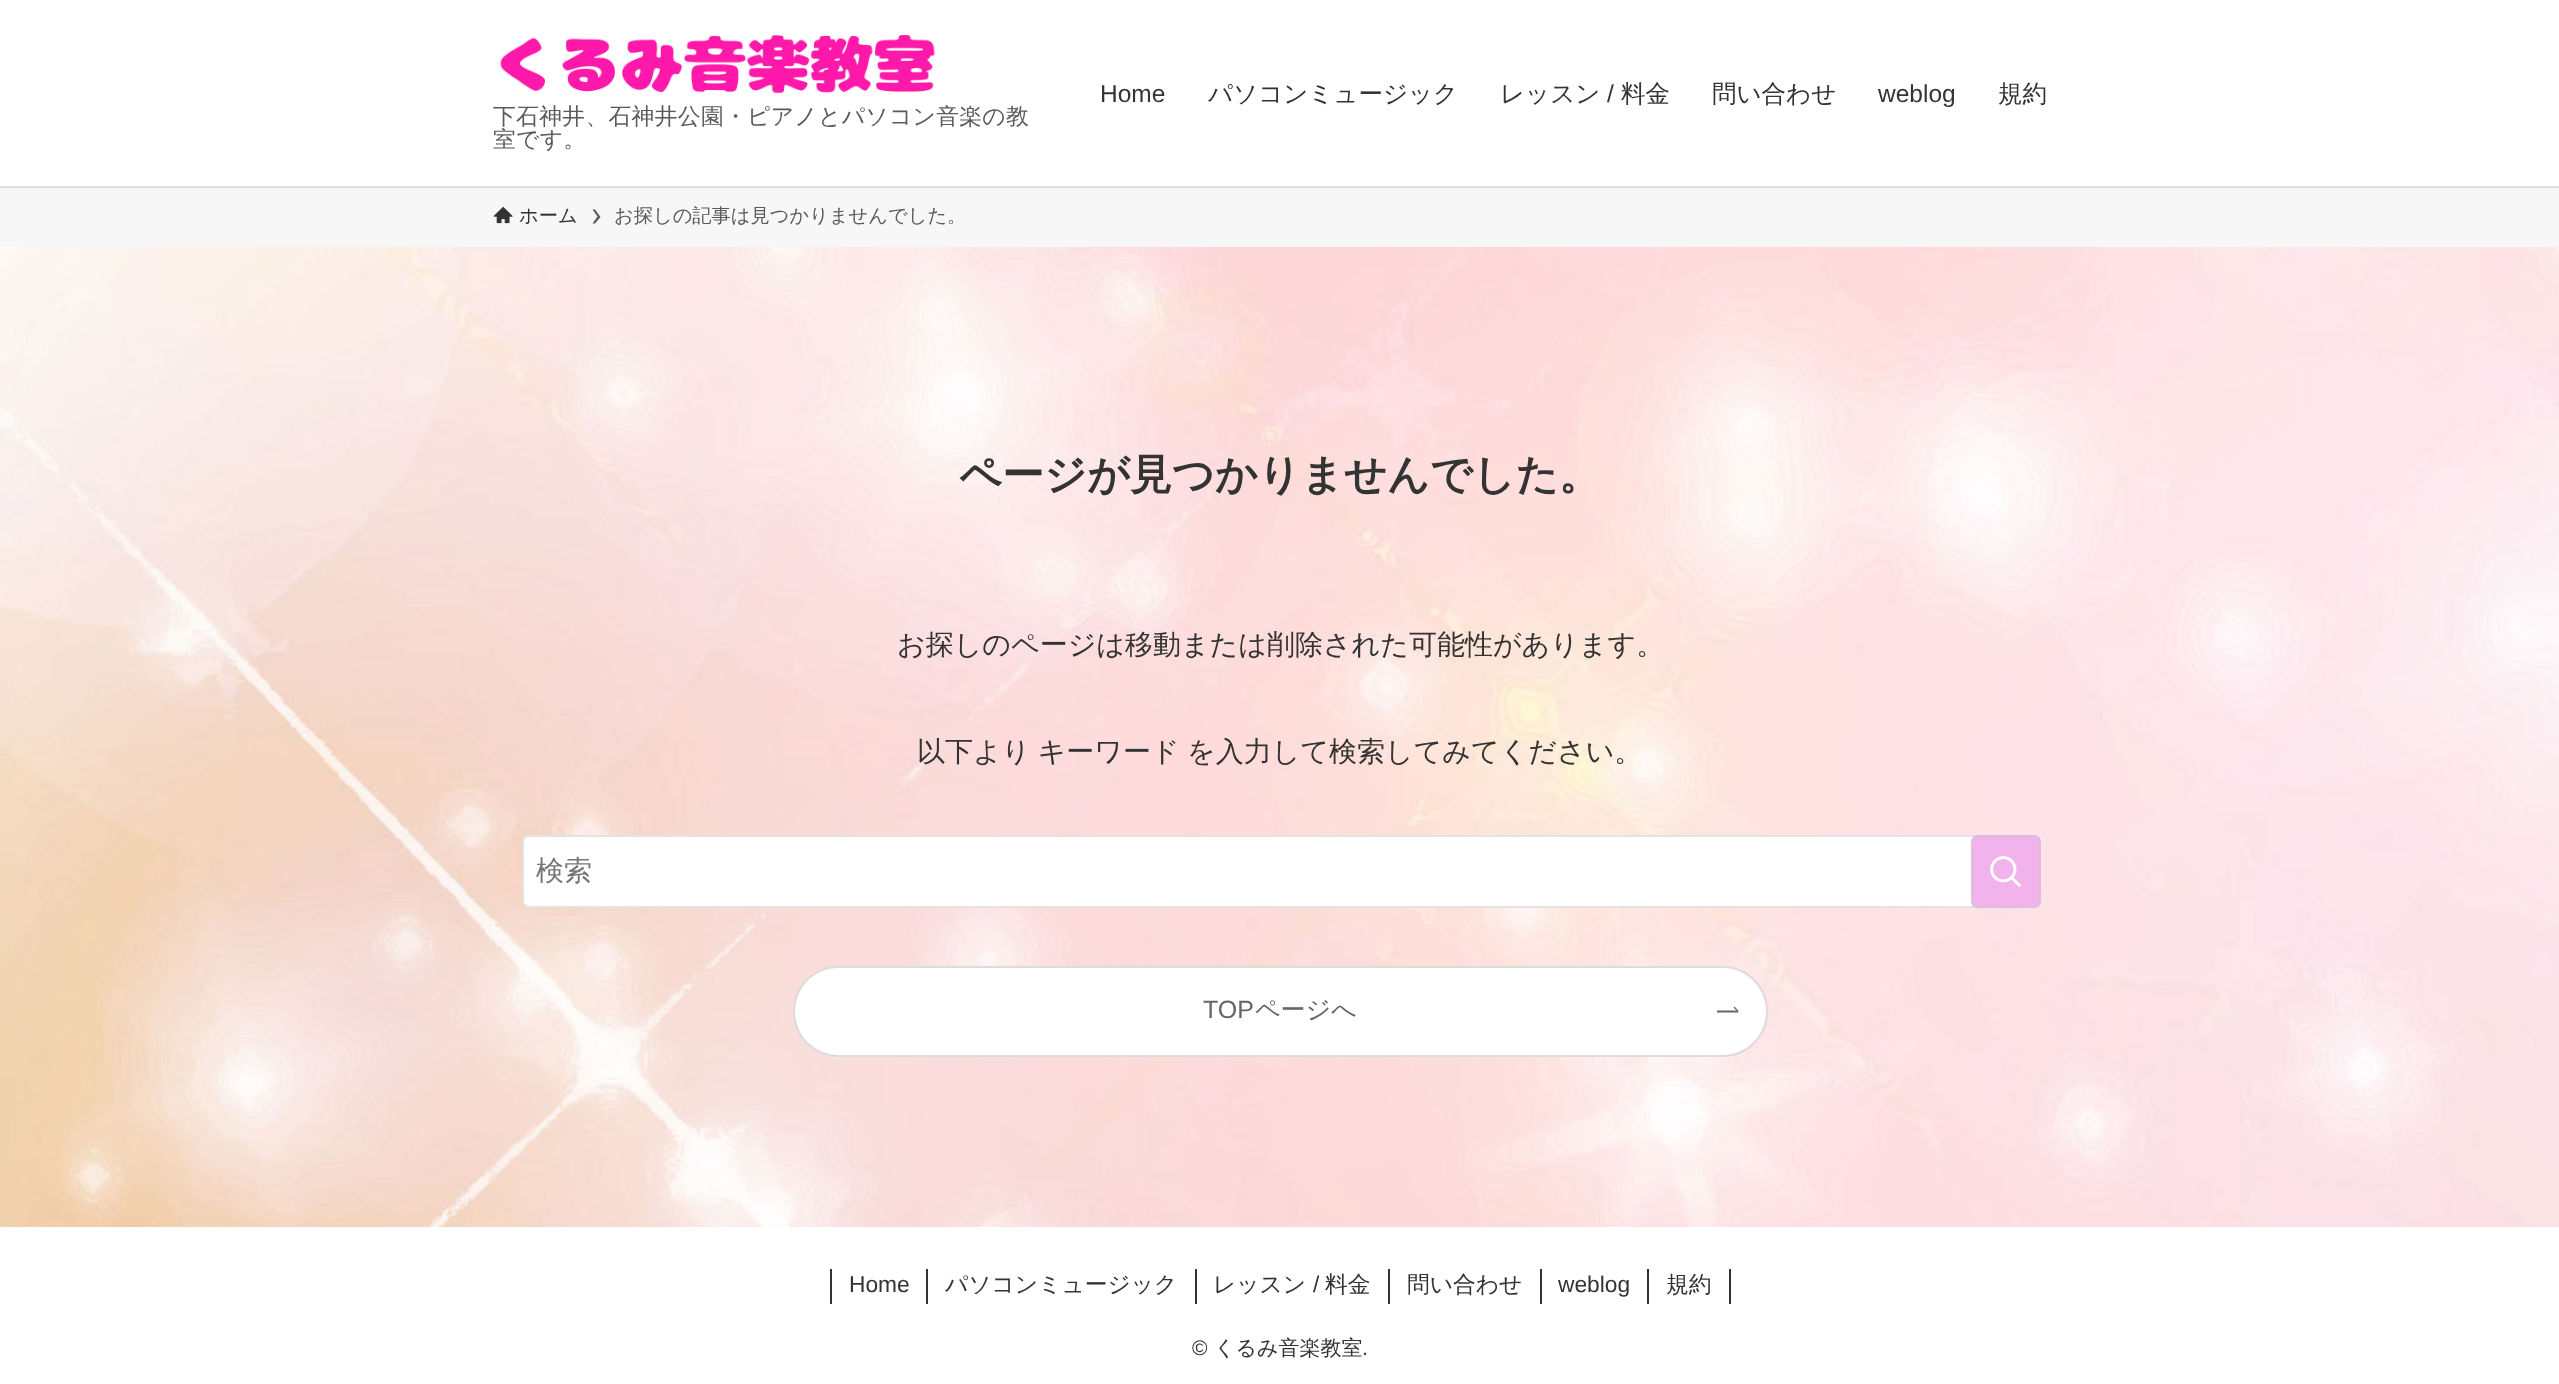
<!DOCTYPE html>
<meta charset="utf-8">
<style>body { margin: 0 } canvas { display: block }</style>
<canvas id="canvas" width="2559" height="1384"></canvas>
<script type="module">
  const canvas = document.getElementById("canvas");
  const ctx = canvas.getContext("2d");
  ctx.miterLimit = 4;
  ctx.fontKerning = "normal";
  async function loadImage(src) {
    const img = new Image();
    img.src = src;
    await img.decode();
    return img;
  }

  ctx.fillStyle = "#ffffff";
  ctx.fillRect(0, 0, 2559, 1384);
  ctx.drawImage(await loadImage("img1.png"), 0, 247, 2559, 980);
  ctx.fillStyle = "#f7f7f7";
  ctx.fillRect(0, 187, 2559, 60);
  ctx.fillStyle = "rgba(0, 0, 0, 0.1)";
  ctx.fillRect(0, 186, 2559, 2);
  ctx.font = "24.5px Liberation Sans";
  ctx.fillStyle = "#333333";
  ctx.fillText("Home", 1100, 102);
  ctx.font = "500 24.5px WenQuanYi Zen Hei";
  ctx.fillText("パソコンミュージック", 1208, 102);
  ctx.fillText("レッスン", 1500, 102);
  ctx.font = "24.5px Liberation Sans";
  ctx.fillText("/", 1607, 102);
  ctx.font = "500 24.5px WenQuanYi Zen Hei";
  ctx.fillText("料金", 1621, 102);
  ctx.fillText("問い合わせ", 1712, 102);
  ctx.font = "24.5px Liberation Sans";
  ctx.fillText("weblog", 1878, 102);
  ctx.font = "500 24.5px WenQuanYi Zen Hei";
  ctx.fillText("規約", 1998, 102);
  ctx.drawImage(await loadImage("img2.png"), 500, 35, 435, 59);
  ctx.letterSpacing = "0.35px";
  ctx.font = "500 22.75px WenQuanYi Zen Hei";
  ctx.fillStyle = "#5a5a5a";
  ctx.fillText("下石神井、石神井公園・ピアノとパソコン音楽の教", 493, 124);
  ctx.fillText("室です。", 493, 147);
  ctx.drawImage(await loadImage("img3.png"), 493, 206, 20, 18);
  ctx.letterSpacing = "0px";
  ctx.font = "500 19.25px WenQuanYi Zen Hei";
  ctx.fillStyle = "#333333";
  ctx.fillText("ホーム", 519, 222);
  ctx.fillStyle = "#5a5a5a";
  ctx.beginPath();
  ctx.moveTo(595, 209.5);
  ctx.lineTo(592.5, 209.5);
  ctx.lineTo(597.5, 216.5);
  ctx.lineTo(592.5, 223.5);
  ctx.lineTo(595, 223.5);
  ctx.lineTo(600.5, 217);
  ctx.closePath();
  ctx.fill();
  ctx.fillText("お探しの記事は見つかりませんでした。", 614, 222);
  ctx.font = "bold 42px WenQuanYi Zen Hei";
  ctx.fillStyle = "#333333";
  ctx.fillText("ページが見つかりませんでした。", 959, 489);
  ctx.font = "500 28px WenQuanYi Zen Hei";
  ctx.fillText("お探しのページは移動または削除された可能性があります。", 897, 654);
  ctx.wordSpacing = "-1px";
  ctx.fillText("以下より キーワード を入力して検索してみてください。", 917, 761);
  ctx.fillStyle = "#ffffff";
  ctx.beginPath();
  ctx.roundRect(522, 835, 1519, 73, 7);
  ctx.fill();
  ctx.beginPath();
  ctx.roundRect(523, 836, 1517, 71, 6);
  ctx.strokeStyle = "rgba(199, 199, 199, 0.5)";
  ctx.lineWidth = 2;
  ctx.stroke();
  ctx.wordSpacing = "0px";
  ctx.fillStyle = "#757575";
  ctx.fillText("検索", 536, 880);
  ctx.fillStyle = "#f2b3ed";
  ctx.beginPath();
  ctx.roundRect(1971, 835, 70, 73, 7);
  ctx.fill();
  ctx.beginPath();
  ctx.roundRect(1972, 836, 68, 71, 6);
  ctx.stroke();
  ctx.drawImage(await loadImage("img4.png"), 1990, 856, 31, 31);
  ctx.beginPath();
  ctx.roundRect(794, 967, 973, 89, 44.5);
  ctx.strokeStyle = "#dcdcdc";
  ctx.stroke();
  ctx.fillStyle = "#ffffff";
  ctx.beginPath();
  ctx.roundRect(795, 968, 971, 87, 43.5);
  ctx.fill();
  ctx.font = "25px Liberation Sans";
  ctx.fillStyle = "#666666";
  ctx.fillText("TOP", 1203, 1018);
  ctx.font = "500 25px WenQuanYi Zen Hei";
  ctx.fillText("ページへ", 1255, 1018);
  ctx.beginPath();
  ctx.moveTo(1738, 1012.5);
  ctx.lineTo(1717, 1012.5);
  ctx.lineTo(1717, 1010.5);
  ctx.lineTo(1736.5, 1010.5);
  ctx.lineTo(1733.5, 1007.5);
  ctx.lineTo(1734.5, 1006.5);
  ctx.lineTo(1738.5, 1011);
  ctx.closePath();
  ctx.fill();
  ctx.fillStyle = "#333333";
  ctx.fillRect(926, 1269, 2, 35);
  ctx.fillRect(830, 1269, 2, 35);
  ctx.font = "22.75px Liberation Sans";
  ctx.fillText("Home", 849, 1292);
  ctx.fillRect(1195, 1269, 2, 35);
  ctx.font = "500 22.75px WenQuanYi Zen Hei";
  ctx.fillText("パソコンミュージック", 945, 1292);
  ctx.fillRect(1388, 1269, 2, 35);
  ctx.fillText("レッスン", 1213, 1292);
  ctx.font = "22.75px Liberation Sans";
  ctx.fillText("/", 1313, 1292);
  ctx.font = "500 22.75px WenQuanYi Zen Hei";
  ctx.fillText("料金", 1325, 1292);
  ctx.fillRect(1540, 1269, 2, 35);
  ctx.fillText("問い合わせ", 1407, 1292);
  ctx.fillRect(1647, 1269, 2, 35);
  ctx.font = "22.75px Liberation Sans";
  ctx.fillText("weblog", 1558, 1292);
  ctx.fillRect(1729, 1269, 2, 35);
  ctx.font = "500 22.75px WenQuanYi Zen Hei";
  ctx.fillText("規約", 1666, 1292);
  ctx.font = "21px Liberation Sans";
  ctx.fillText("©", 1192, 1355);
  ctx.font = "500 21px WenQuanYi Zen Hei";
  ctx.fillText("くるみ音楽教室", 1214, 1355);
  ctx.font = "21px Liberation Sans";
  ctx.fillText(".", 1362, 1355);
</script>
